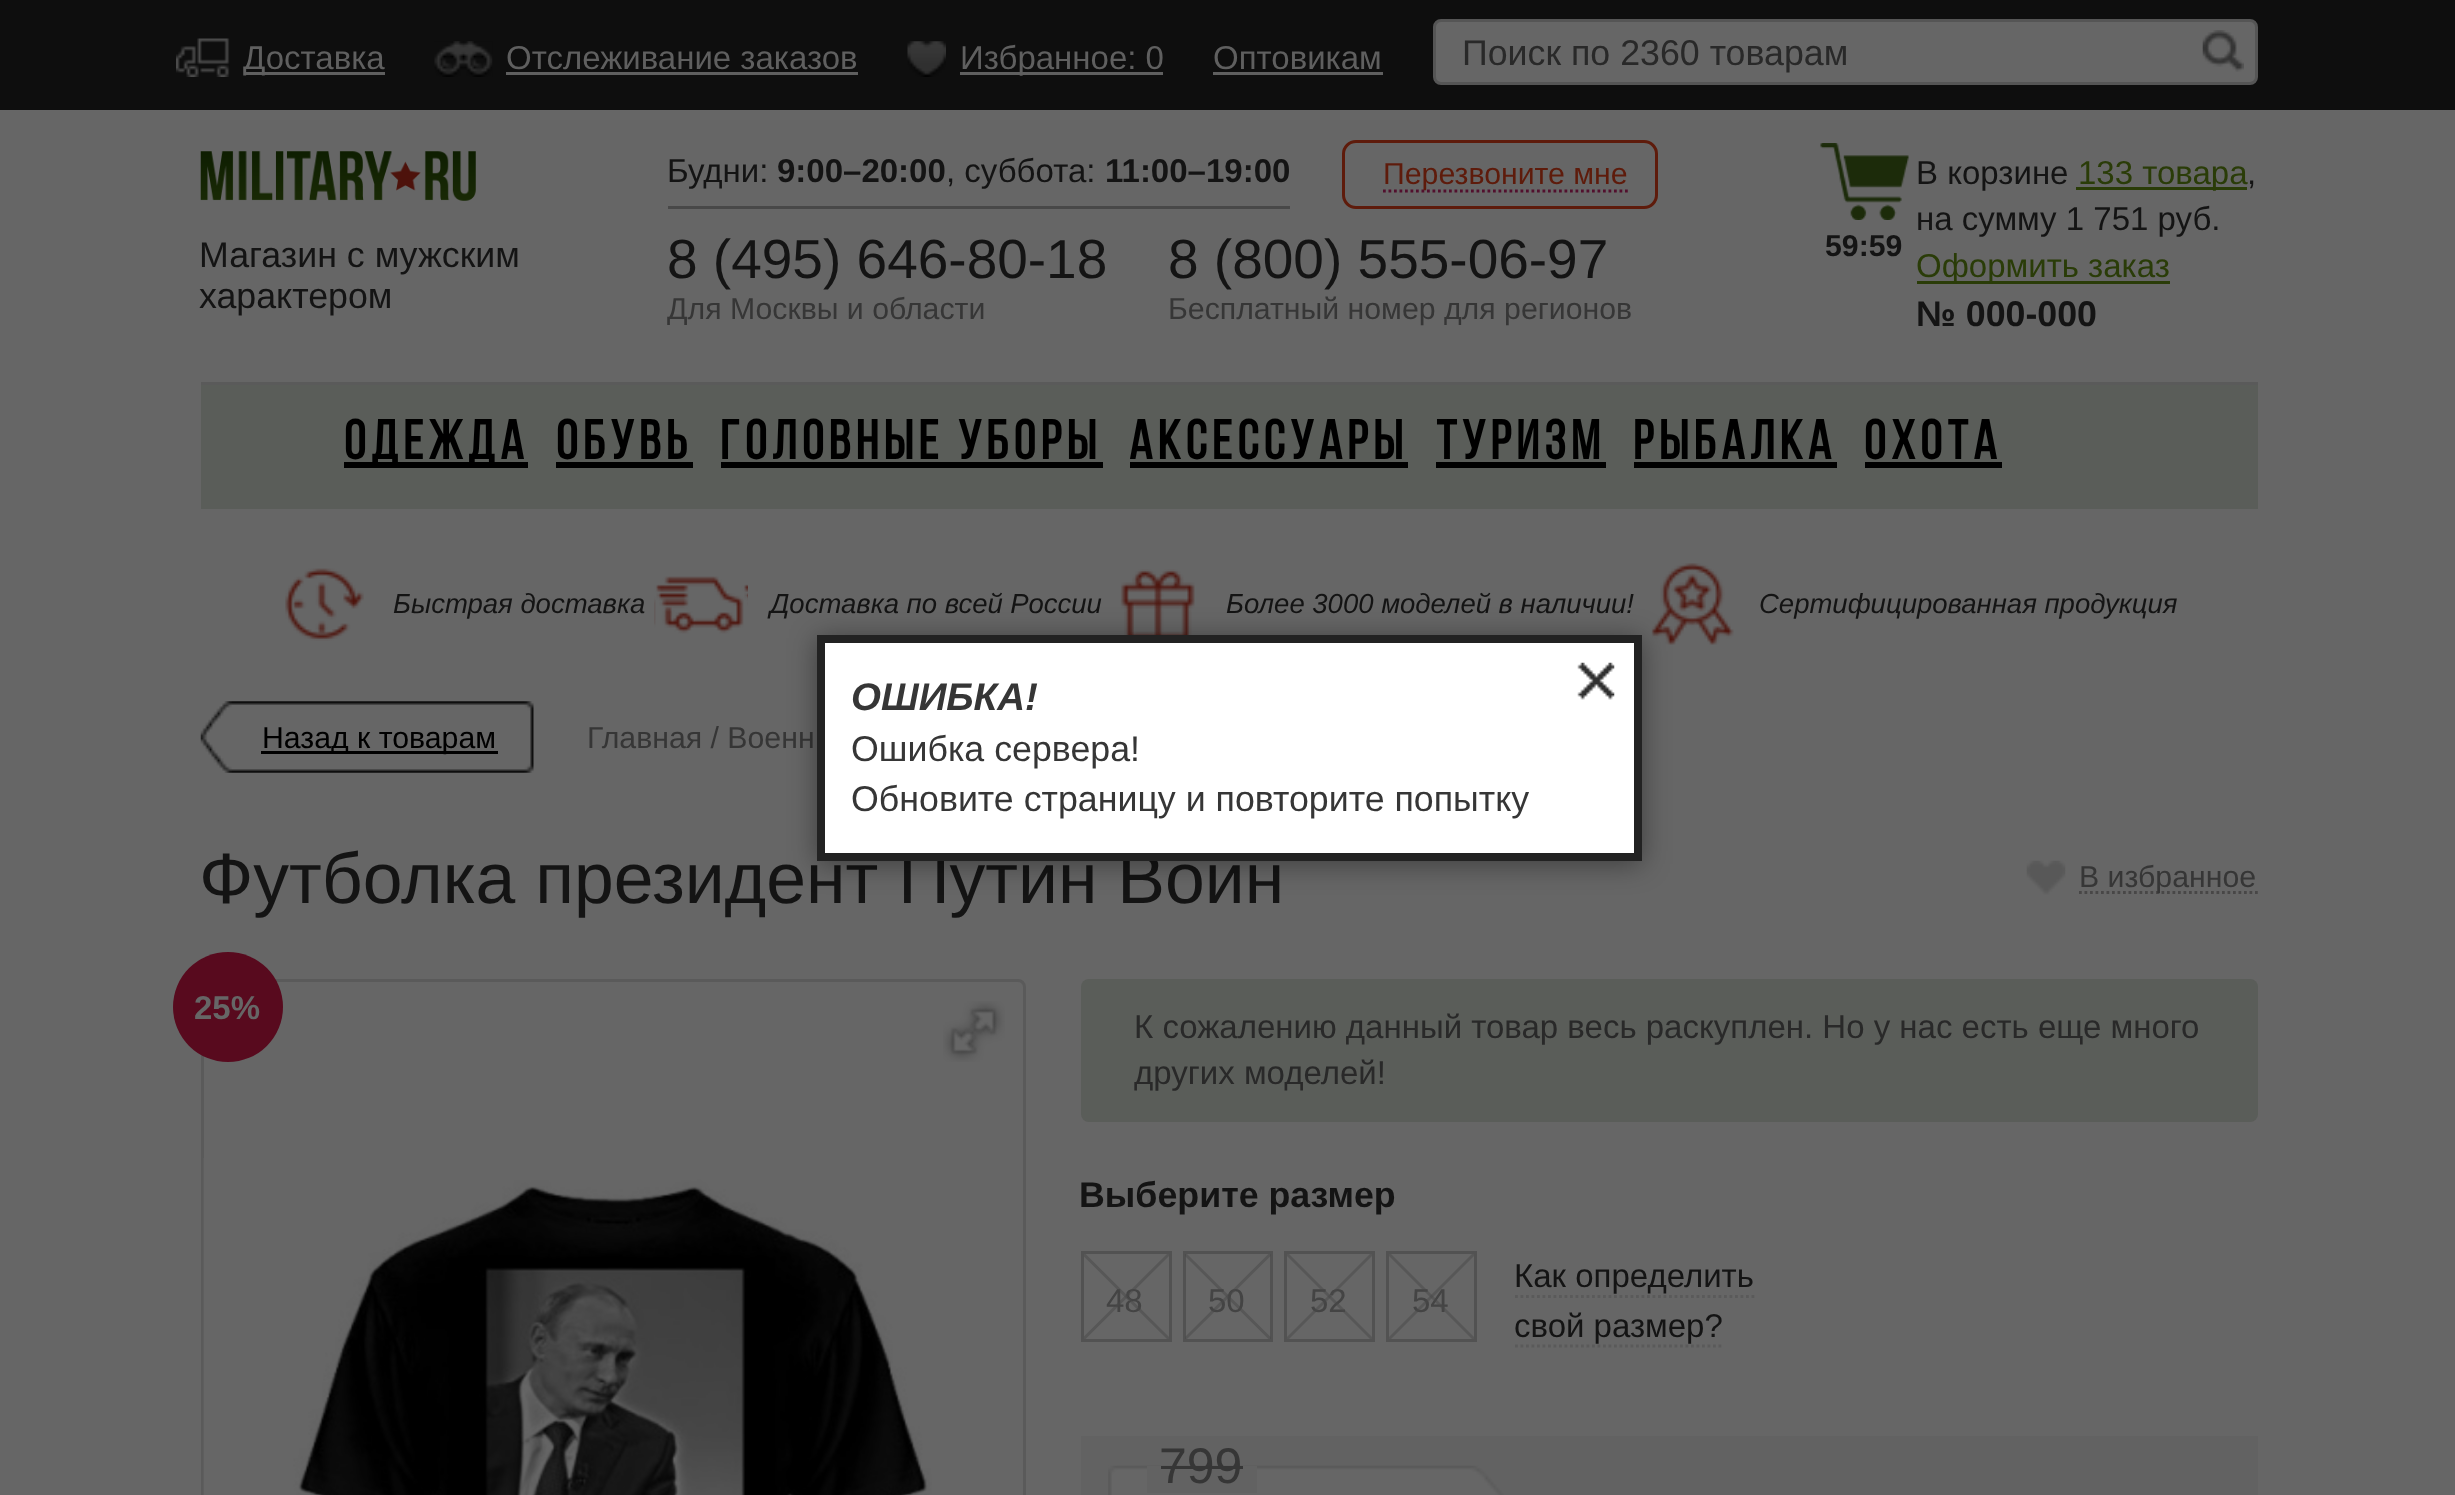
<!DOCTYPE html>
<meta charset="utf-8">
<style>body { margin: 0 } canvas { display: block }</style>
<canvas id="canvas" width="2455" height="1495"></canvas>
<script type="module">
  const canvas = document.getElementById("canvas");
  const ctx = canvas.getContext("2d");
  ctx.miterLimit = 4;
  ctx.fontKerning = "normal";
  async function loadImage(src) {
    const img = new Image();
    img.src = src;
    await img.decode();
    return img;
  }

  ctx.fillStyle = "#666666";
  ctx.fillRect(0, 0, 2455, 1495);
  ctx.fillStyle = "#0e0e0e";
  ctx.fillRect(0, 0, 2455, 110);
  ctx.drawImage(await loadImage("img1.png"), 176, 38, 54, 39);
  ctx.fillStyle = "#5f5f5f";
  ctx.fillRect(245, 72, 140, 3);
  ctx.font = "33px Liberation Sans";
  ctx.fillText("Доставка", 243, 69);
  ctx.drawImage(await loadImage("img2.png"), 434, 41, 59, 36);
  ctx.fillText("Отслеживание заказов", 506, 69);
  ctx.fillRect(506, 72, 352, 3);
  ctx.drawImage(await loadImage("img3.png"), 907, 41, 39, 36);
  ctx.fillRect(960, 72, 203, 3);
  ctx.fillText("Избранное: 0", 960, 69);
  ctx.fillText("Оптовикам", 1213, 69);
  ctx.fillRect(1213, 72, 170, 3);
  ctx.fillStyle = "#666666";
  ctx.beginPath();
  ctx.roundRect(1434.5, 20.5, 822, 63, 6.5);
  ctx.fill();
  ctx.strokeStyle = "#555555";
  ctx.lineWidth = 3;
  ctx.stroke();
  ctx.font = "35.75px Liberation Sans";
  ctx.fillStyle = "#292929";
  ctx.fillText("Поиск по 2360 товарам", 1462, 65);
  ctx.drawImage(await loadImage("img4.png"), 2202, 30, 42, 42);
  ctx.fillStyle = "#5a5a5a";
  ctx.fillRect(201, 382, 2057, 3);
  ctx.drawImage(await loadImage("img5.png"), 200, 151, 276, 50);
  ctx.fillStyle = "#484848";
  ctx.fillRect(668, 206, 622, 3);
  ctx.font = "33px Liberation Sans";
  ctx.fillStyle = "#141414";
  ctx.fillText("Будни:", 667, 182);
  ctx.font = "bold 33px Liberation Sans";
  ctx.fillText("9:00–20:00", 777, 182);
  ctx.font = "33px Liberation Sans";
  ctx.fillText(", суббота:", 946, 182);
  ctx.font = "bold 33px Liberation Sans";
  ctx.fillText("11:00–19:00", 1105, 182);
  ctx.beginPath();
  ctx.roundRect(1343.5, 141.5, 313, 66, 12.5);
  ctx.strokeStyle = "#5e1b0b";
  ctx.stroke();
  ctx.beginPath();
  ctx.moveTo(1383, 191);
  ctx.lineTo(1628, 191);
  ctx.strokeStyle = "#520f2d";
  ctx.lineWidth = 2.8;
  ctx.setLineDash([2.75, 2.75]);
  ctx.stroke();
  ctx.font = "30.25px Liberation Sans";
  ctx.fillStyle = "#5e1b0b";
  ctx.fillText("Перезвоните мне", 1383, 184);
  ctx.drawImage(await loadImage("img6.png"), 1820, 143, 89, 77);
  ctx.font = "bold 30.25px Liberation Sans";
  ctx.fillStyle = "#141414";
  ctx.fillText("59:59", 1825, 256);
  ctx.font = "33px Liberation Sans";
  ctx.fillText("В корзине", 1916, 184);
  ctx.fillStyle = "#2a3c08";
  ctx.fillRect(2076, 187, 171, 3);
  ctx.fillText("133 товара", 2078, 184);
  ctx.fillStyle = "#141414";
  ctx.fillText(",", 2247, 184);
  ctx.fillText("на сумму 1 751 руб.", 1916, 230);
  ctx.fillStyle = "#2a3c08";
  ctx.fillRect(1917, 281, 253, 3);
  ctx.fillText("Оформить заказ", 1916, 277);
  ctx.font = "bold 35.75px Liberation Sans";
  ctx.fillStyle = "#141414";
  ctx.fillText("№ 000-000", 1916, 326);
  ctx.font = "35.75px Liberation Sans";
  ctx.fillText("Магазин с мужским", 199, 267);
  ctx.fillText("характером", 199, 308);
  ctx.font = "55px Liberation Sans";
  ctx.fillText("8 (495) 646-80-18", 667, 278);
  ctx.font = "30.25px Liberation Sans";
  ctx.fillStyle = "#363636";
  ctx.fillText("Для Москвы и области", 667, 319);
  ctx.font = "55px Liberation Sans";
  ctx.fillStyle = "#141414";
  ctx.fillText("8 (800) 555-06-97", 1168, 278);
  ctx.font = "30.25px Liberation Sans";
  ctx.fillStyle = "#363636";
  ctx.fillText("Бесплатный номер для регионов", 1168, 319);
  ctx.fillStyle = "#5a5d59";
  ctx.fillRect(201, 385, 2057, 124);
  ctx.fillStyle = "#000000";
  ctx.fillRect(344, 462, 184, 6);
  ctx.letterSpacing = "5.5px";
  ctx.font = "bold 55px Bebas Neue";
  ctx.fillText("ОДЕЖДА", 344, 459);
  ctx.fillText("ОБУВЬ", 556, 459);
  ctx.fillRect(556, 462, 137, 6);
  ctx.fillText("ГОЛОВНЫЕ УБОРЫ", 720, 459);
  ctx.fillRect(721, 462, 382, 6);
  ctx.fillText("АКСЕССУАРЫ", 1129, 459);
  ctx.fillRect(1130, 462, 278, 6);
  ctx.fillText("ТУРИЗМ", 1436, 459);
  ctx.fillRect(1436, 462, 170, 6);
  ctx.fillText("РЫБАЛКА", 1633, 459);
  ctx.fillRect(1634, 462, 203, 6);
  ctx.fillText("ОХОТА", 1864, 459);
  ctx.fillRect(1865, 462, 137, 6);
  ctx.drawImage(await loadImage("img7.png"), 285, 568, 79, 73);
  ctx.letterSpacing = "0px";
  ctx.font = "italic 27.5px Liberation Sans";
  ctx.fillStyle = "#141414";
  ctx.fillText("Быстрая доставка", 393, 613);
  ctx.drawImage(await loadImage("img8.png"), 654, 576, 94, 58);
  ctx.fillText("Доставка по всей России", 770, 613);
  ctx.drawImage(await loadImage("img9.png"), 1120, 569, 75, 66);
  ctx.fillText("Более 3000 моделей в наличии!", 1226, 613);
  ctx.drawImage(await loadImage("img10.png"), 1651, 563, 83, 82);
  ctx.fillText("Сертифицированная продукция", 1759, 613);
  ctx.drawImage(await loadImage("img11.png"), 200, 701, 334, 72);
  ctx.fillStyle = "#000000";
  ctx.fillRect(261, 751, 237, 3);
  ctx.font = "30.25px Liberation Sans";
  ctx.fillText("Назад к товарам", 262, 748);
  ctx.fillStyle = "#363636";
  ctx.fillText("Главная / Военн", 587, 748);
  ctx.font = "71.5px Liberation Sans";
  ctx.fillStyle = "#141414";
  ctx.fillText("Футболка президент Путин Воин", 199, 903);
  ctx.drawImage(await loadImage("img12.png"), 2026, 860, 40, 35);
  ctx.beginPath();
  ctx.moveTo(2079, 892.5);
  ctx.lineTo(2258, 892.5);
  ctx.strokeStyle = "#484747";
  ctx.stroke();
  ctx.font = "30.25px Liberation Sans";
  ctx.fillStyle = "#363636";
  ctx.fillText("В избранное", 2079, 887);
  ctx.beginPath();
  ctx.roundRect(202.5, 980.5, 822, 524, 6.5);
  ctx.strokeStyle = "#5a5a5a";
  ctx.lineWidth = 3;
  ctx.setLineDash([]);
  ctx.stroke();
  ctx.drawImage(await loadImage("img13.png"), 943, 1001, 62, 61);
  ctx.drawImage(await loadImage("img14.png"), 203, 1158, 729, 337);
  ctx.fillStyle = "#580a1e";
  ctx.beginPath();
  ctx.arc(228, 1007, 55, 0, Math.PI * 2);
  ctx.fill();
  ctx.font = "bold 33px Liberation Sans";
  ctx.fillStyle = "#666666";
  ctx.fillText("25%", 194, 1019);
  ctx.fillStyle = "#5a5d59";
  ctx.beginPath();
  ctx.roundRect(1081, 979, 1177, 143, 8);
  ctx.fill();
  ctx.font = "33px Liberation Sans";
  ctx.fillStyle = "#292929";
  ctx.fillText("К сожалению данный товар весь раскуплен. Но у нас есть еще много", 1134, 1038);
  ctx.fillText("других моделей!", 1134, 1084);
  ctx.font = "bold 35.75px Liberation Sans";
  ctx.fillStyle = "#141414";
  ctx.fillText("Выберите размер", 1079, 1207);
  ctx.strokeStyle = "#525252";
  ctx.strokeRect(1082.5, 1252.5, 88, 88);
  ctx.font = "33px Liberation Sans";
  ctx.fillStyle = "#444444";
  ctx.fillText("48", 1106, 1312);
  ctx.save();
  ctx.beginPath();
  ctx.rect(1084, 1254, 85, 85);
  ctx.clip();
  ctx.beginPath();
  ctx.moveTo(1083.5, 1254);
  ctx.lineTo(1169, 1339);
  ctx.strokeStyle = "rgba(72, 72, 72, 0.5)";
  ctx.lineWidth = 2.8;
  ctx.stroke();
  ctx.beginPath();
  ctx.moveTo(1083.5, 1339);
  ctx.lineTo(1169, 1254);
  ctx.stroke();
  ctx.restore();
  ctx.strokeRect(1184.5, 1252.5, 87, 88);
  ctx.fillText("50", 1208, 1312);
  ctx.save();
  ctx.beginPath();
  ctx.rect(1185, 1254, 86, 85);
  ctx.clip();
  ctx.beginPath();
  ctx.moveTo(1185, 1254);
  ctx.lineTo(1270.5, 1339);
  ctx.strokeStyle = "rgba(72, 72, 72, 0.5)";
  ctx.lineWidth = 2.8;
  ctx.stroke();
  ctx.beginPath();
  ctx.moveTo(1185, 1339);
  ctx.lineTo(1270.5, 1254);
  ctx.stroke();
  ctx.restore();
  ctx.strokeRect(1285.5, 1252.5, 88, 88);
  ctx.fillText("52", 1310, 1312);
  ctx.save();
  ctx.beginPath();
  ctx.rect(1287, 1254, 85, 85);
  ctx.clip();
  ctx.beginPath();
  ctx.moveTo(1287, 1254);
  ctx.lineTo(1372, 1339);
  ctx.strokeStyle = "rgba(72, 72, 72, 0.5)";
  ctx.lineWidth = 2.8;
  ctx.stroke();
  ctx.beginPath();
  ctx.moveTo(1287, 1339);
  ctx.lineTo(1372, 1254);
  ctx.stroke();
  ctx.restore();
  ctx.strokeRect(1387.5, 1252.5, 88, 88);
  ctx.fillText("54", 1412, 1312);
  ctx.save();
  ctx.beginPath();
  ctx.rect(1389, 1254, 85, 85);
  ctx.clip();
  ctx.beginPath();
  ctx.moveTo(1389, 1254);
  ctx.lineTo(1474, 1339);
  ctx.strokeStyle = "rgba(72, 72, 72, 0.5)";
  ctx.lineWidth = 2.8;
  ctx.stroke();
  ctx.beginPath();
  ctx.moveTo(1389, 1339);
  ctx.lineTo(1474, 1254);
  ctx.stroke();
  ctx.restore();
  ctx.fillStyle = "#141414";
  ctx.fillText("Как определить", 1514, 1287);
  ctx.beginPath();
  ctx.moveTo(1515, 1296.5);
  ctx.lineTo(1754.5, 1296.5);
  ctx.strokeStyle = "#5a5a5a";
  ctx.lineWidth = 2.8;
  ctx.setLineDash([2.75, 2.75]);
  ctx.stroke();
  ctx.fillText("свой размер?", 1514, 1337);
  ctx.beginPath();
  ctx.moveTo(1515, 1346);
  ctx.lineTo(1721.5, 1346);
  ctx.stroke();
  ctx.fillStyle = "#626262";
  ctx.fillRect(1081, 1436, 1177, 59);
  ctx.drawImage(await loadImage("img15.png"), 1108, 1465, 396, 30);
  ctx.fillRect(1147, 1466, 110, 27);
  ctx.font = "50px Liberation Sans";
  ctx.fillStyle = "#363636";
  ctx.fillText("799", 1159, 1483);
  ctx.fillRect(1161, 1466, 82, 3);
  ctx.fillStyle = "rgba(0, 0, 0, 0.4)";
  ctx.filter = "blur(14px)";
  ctx.beginPath();
  ctx.rect(817, 638, 825, 226);
  ctx.fill();
  ctx.filter = "none";
  ctx.fillStyle = "#ffffff";
  ctx.beginPath();
  ctx.rect(821, 639, 817, 218);
  ctx.fill();
  ctx.strokeStyle = "#222222";
  ctx.lineWidth = 8;
  ctx.setLineDash([]);
  ctx.stroke();
  ctx.font = "italic bold 38.5px Liberation Sans";
  ctx.fillStyle = "#363636";
  ctx.fillText("ОШИБКА!", 851, 710);
  ctx.drawImage(await loadImage("img16.png"), 1577, 662, 38, 38);
  ctx.font = "35.75px Liberation Sans";
  ctx.fillText("Ошибка сервера!", 851, 761);
  ctx.fillText("Обновите страницу и повторите попытку", 851, 811);
</script>
